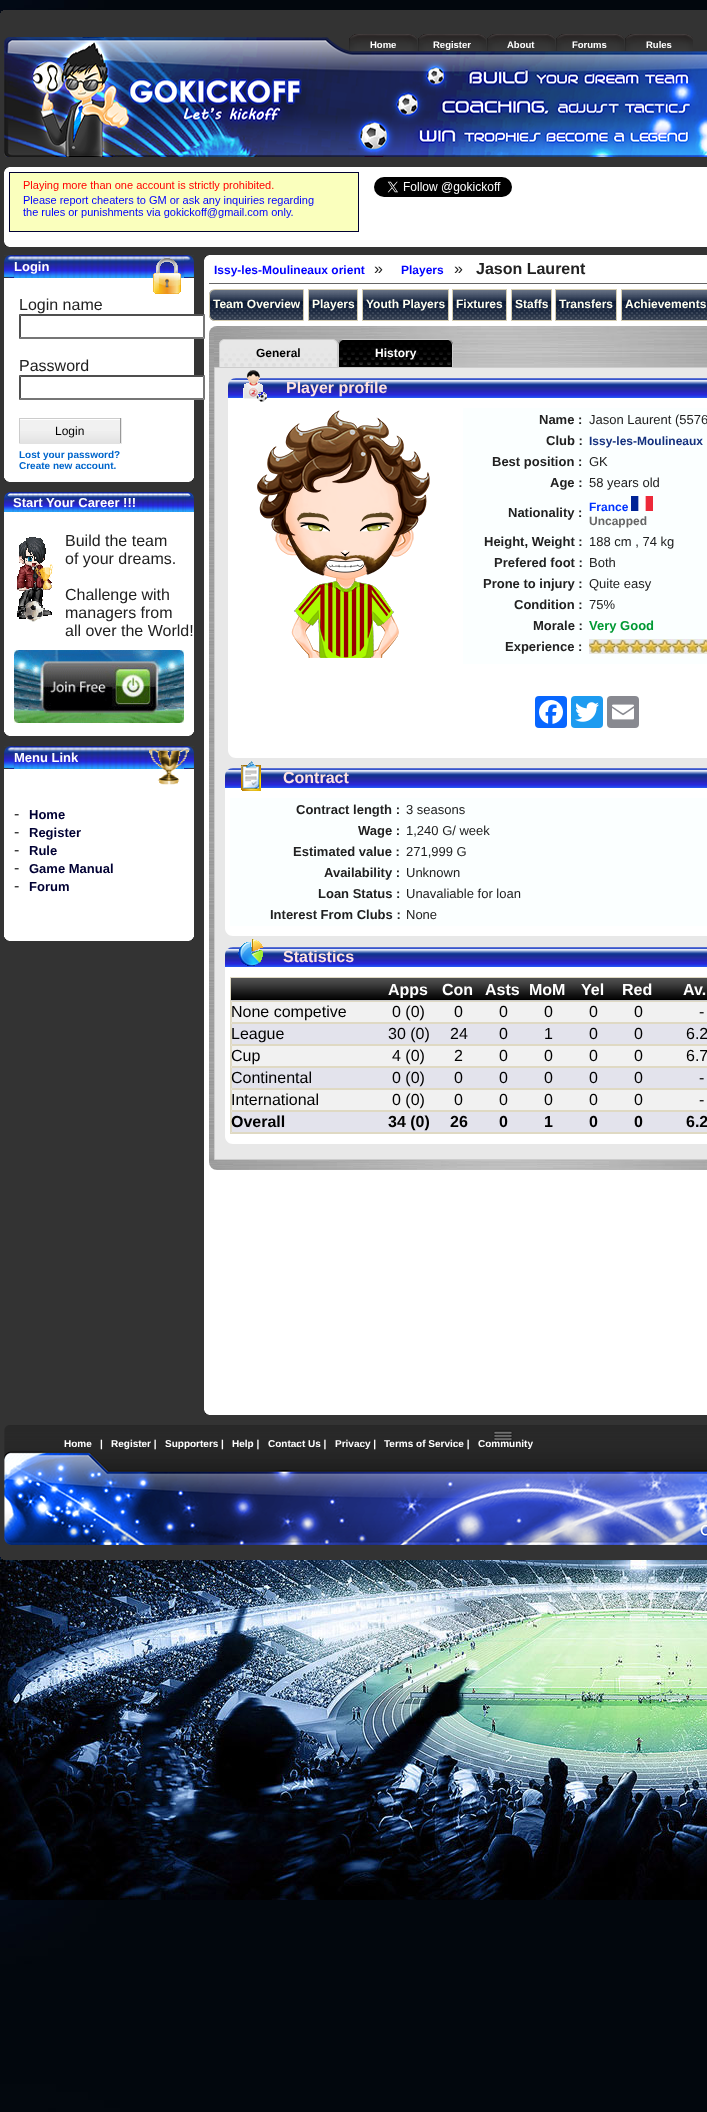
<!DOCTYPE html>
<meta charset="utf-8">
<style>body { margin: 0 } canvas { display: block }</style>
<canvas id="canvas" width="707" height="2112"></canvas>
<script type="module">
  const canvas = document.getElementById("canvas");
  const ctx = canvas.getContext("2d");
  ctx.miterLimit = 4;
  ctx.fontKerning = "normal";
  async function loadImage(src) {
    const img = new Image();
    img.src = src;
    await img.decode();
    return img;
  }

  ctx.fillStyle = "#ffffff";
  ctx.fillRect(0, 0, 707, 2112);
  ctx.drawImage(await loadImage("img1.png"), 0, 0, 707, 2112);
  ctx.fillStyle = "#333333";
  ctx.fillRect(3, 10, 704, 1);
  ctx.fillRect(1, 11, 706, 2);
  ctx.fillRect(0, 13, 707, 2);
  ctx.fillRect(0, 15, 707, 1542);
  ctx.drawImage(await loadImage("img2.png"), 4, 37, 703, 120);
  ctx.drawImage(await loadImage("img3.png"), 349, 34, 68, 17);
  ctx.font = "bold 9.5px Liberation Sans";
  ctx.fillStyle = "#ffffff";
  ctx.fillText("Home", 370, 48);
  ctx.drawImage(await loadImage("img3.png"), 418, 34, 68, 17);
  ctx.fillText("Register", 433, 48);
  ctx.drawImage(await loadImage("img3.png"), 487, 34, 68, 17);
  ctx.fillText("About", 507, 48);
  ctx.drawImage(await loadImage("img3.png"), 556, 34, 68, 17);
  ctx.fillText("Forums", 572, 48);
  ctx.drawImage(await loadImage("img3.png"), 625, 34, 68, 17);
  ctx.fillText("Rules", 646, 48);
  ctx.fillStyle = "#bfbfbf";
  ctx.fillRect(7, 167, 2, 1);
  ctx.fillStyle = "#6d6d6d";
  ctx.fillRect(7, 167, 1, 1);
  ctx.fillStyle = "#ffffff";
  ctx.fillRect(9, 167, 698, 1);
  ctx.fillStyle = "#cecece";
  ctx.fillRect(5, 168, 2, 1);
  ctx.fillStyle = "#191919";
  ctx.fillRect(5, 168, 1, 1);
  ctx.fillStyle = "#ffffff";
  ctx.fillRect(7, 168, 700, 1);
  ctx.fillRect(5, 169, 702, 1);
  ctx.fillStyle = "#cecece";
  ctx.fillRect(5, 169, 1, 1);
  ctx.fillStyle = "#ffffff";
  ctx.fillRect(4, 170, 703, 2);
  ctx.fillStyle = "#6d6d6d";
  ctx.fillRect(4, 170, 1, 1);
  ctx.fillStyle = "#bfbfbf";
  ctx.fillRect(4, 171, 1, 1);
  ctx.fillStyle = "#ffffff";
  ctx.fillRect(4, 172, 703, 72);
  ctx.drawImage(await loadImage("img4.png"), 9, 172, 350, 60);
  ctx.drawImage(await loadImage("img5.png"), 374, 177, 138, 20);
  ctx.fillStyle = "#bfbfbf";
  ctx.fillRect(4, 242, 1, 1);
  ctx.fillStyle = "#6d6d6d";
  ctx.fillRect(4, 243, 1, 1);
  ctx.fillStyle = "#ffffff";
  ctx.fillRect(5, 244, 702, 1);
  ctx.fillStyle = "#cecece";
  ctx.fillRect(5, 244, 1, 1);
  ctx.fillRect(5, 245, 2, 1);
  ctx.fillStyle = "#191919";
  ctx.fillRect(5, 245, 1, 1);
  ctx.fillStyle = "#ffffff";
  ctx.fillRect(7, 245, 700, 1);
  ctx.fillStyle = "#bfbfbf";
  ctx.fillRect(7, 246, 2, 1);
  ctx.fillStyle = "#6d6d6d";
  ctx.fillRect(7, 246, 1, 1);
  ctx.fillStyle = "#ffffff";
  ctx.fillRect(9, 246, 698, 1);
  ctx.drawImage(await loadImage("img6.png"), 4, 255, 10, 23);
  ctx.drawImage(await loadImage("img7.png"), 14, 255, 170, 23);
  ctx.font = "bold 13px Liberation Sans";
  ctx.fillText("Login", 14, 271);
  ctx.drawImage(await loadImage("img8.png"), 184, 255, 10, 23);
  ctx.fillRect(4, 278, 190, 201);
  ctx.drawImage(await loadImage("img9.png"), 153, 258, 28, 36);
  ctx.font = "16px Liberation Sans";
  ctx.fillStyle = "#212121";
  ctx.fillText("Login name", 19, 310);
  ctx.fillStyle = "#ffffff";
  ctx.fillRect(194, 314, 10, 25);
  ctx.fillRect(204, 260, 503, 1152);
  ctx.fillStyle = "#4f4f4f";
  ctx.beginPath();
  ctx.moveTo(19, 314);
  ctx.lineTo(205, 314);
  ctx.lineTo(203, 316);
  ctx.lineTo(21, 316);
  ctx.closePath();
  ctx.fill();
  ctx.fillStyle = "#767676";
  ctx.beginPath();
  ctx.moveTo(205, 314);
  ctx.lineTo(205, 339);
  ctx.lineTo(203, 337);
  ctx.lineTo(203, 316);
  ctx.closePath();
  ctx.fill();
  ctx.beginPath();
  ctx.moveTo(205, 339);
  ctx.lineTo(19, 339);
  ctx.lineTo(21, 337);
  ctx.lineTo(203, 337);
  ctx.closePath();
  ctx.fill();
  ctx.fillStyle = "#4f4f4f";
  ctx.beginPath();
  ctx.moveTo(19, 339);
  ctx.lineTo(19, 314);
  ctx.lineTo(21, 316);
  ctx.lineTo(21, 337);
  ctx.closePath();
  ctx.fill();
  ctx.fillStyle = "#212121";
  ctx.fillText("Password", 19, 371);
  ctx.fillStyle = "#ffffff";
  ctx.fillRect(194, 375, 10, 25);
  ctx.fillStyle = "#4f4f4f";
  ctx.beginPath();
  ctx.moveTo(19, 375);
  ctx.lineTo(205, 375);
  ctx.lineTo(203, 377);
  ctx.lineTo(21, 377);
  ctx.closePath();
  ctx.fill();
  ctx.fillStyle = "#767676";
  ctx.beginPath();
  ctx.moveTo(205, 375);
  ctx.lineTo(205, 400);
  ctx.lineTo(203, 398);
  ctx.lineTo(203, 377);
  ctx.closePath();
  ctx.fill();
  ctx.beginPath();
  ctx.moveTo(205, 400);
  ctx.lineTo(19, 400);
  ctx.lineTo(21, 398);
  ctx.lineTo(203, 398);
  ctx.closePath();
  ctx.fill();
  ctx.fillStyle = "#4f4f4f";
  ctx.beginPath();
  ctx.moveTo(19, 400);
  ctx.lineTo(19, 375);
  ctx.lineTo(21, 377);
  ctx.lineTo(21, 398);
  ctx.closePath();
  ctx.fill();
  ctx.fillStyle = "#e7e7e7";
  ctx.fillRect(121, 418, 1, 26);
  ctx.fillRect(19, 443, 103, 1);
  ctx.fillStyle = "#cccccc";
  ctx.fillRect(19, 418, 102, 1);
  ctx.fillStyle = "#999999";
  ctx.fillRect(120, 418, 1, 25);
  ctx.fillStyle = "#cccccc";
  ctx.fillRect(19, 418, 1, 25);
  ctx.drawImage(await loadImage("img10.png"), 20, 419, 100, 25);
  ctx.font = "12px Liberation Sans";
  ctx.fillStyle = "#000000";
  ctx.fillText("Login", 55, 435);
  ctx.font = "bold 10px Liberation Sans";
  ctx.fillStyle = "#0066cc";
  ctx.fillText("Lost your password?", 19, 458);
  ctx.fillText("Create new account.", 19, 469);
  ctx.fillStyle = "#6d6d6d";
  ctx.fillRect(193, 478, 1, 1);
  ctx.fillRect(4, 478, 1, 1);
  ctx.fillStyle = "#ffffff";
  ctx.fillRect(5, 479, 188, 1);
  ctx.fillStyle = "#cecece";
  ctx.fillRect(192, 479, 1, 1);
  ctx.fillRect(5, 479, 1, 1);
  ctx.fillRect(5, 480, 188, 1);
  ctx.fillStyle = "#191919";
  ctx.fillRect(192, 480, 1, 1);
  ctx.fillRect(5, 480, 1, 1);
  ctx.fillStyle = "#ffffff";
  ctx.fillRect(7, 480, 184, 1);
  ctx.fillStyle = "#bfbfbf";
  ctx.fillRect(7, 481, 184, 1);
  ctx.fillStyle = "#6d6d6d";
  ctx.fillRect(190, 481, 1, 1);
  ctx.fillRect(7, 481, 1, 1);
  ctx.fillStyle = "#ffffff";
  ctx.fillRect(9, 481, 180, 1);
  ctx.drawImage(await loadImage("img11.png"), 4, 492, 9, 20);
  ctx.drawImage(await loadImage("img12.png"), 13, 492, 172, 20);
  ctx.font = "bold 13px Liberation Sans";
  ctx.fillText("Start Your Career !!!", 13, 507);
  ctx.drawImage(await loadImage("img13.png"), 185, 492, 9, 20);
  ctx.fillRect(4, 512, 190, 221);
  ctx.drawImage(await loadImage("img14.png"), 17, 537, 36, 85);
  ctx.font = "16px Liberation Sans";
  ctx.fillStyle = "#212121";
  ctx.fillText("Build the team", 65, 546);
  ctx.fillText("of your dreams.", 65, 564);
  ctx.fillText("Challenge with", 65, 600);
  ctx.fillText("managers from", 65, 618);
  ctx.fillText("all over the World!", 65, 636);
  ctx.drawImage(await loadImage("img15.png"), 14, 650, 170, 73);
  ctx.fillStyle = "#6d6d6d";
  ctx.fillRect(193, 732, 1, 1);
  ctx.fillRect(4, 732, 1, 1);
  ctx.fillStyle = "#ffffff";
  ctx.fillRect(5, 733, 188, 1);
  ctx.fillStyle = "#cecece";
  ctx.fillRect(192, 733, 1, 1);
  ctx.fillRect(5, 733, 1, 1);
  ctx.fillRect(5, 734, 188, 1);
  ctx.fillStyle = "#191919";
  ctx.fillRect(192, 734, 1, 1);
  ctx.fillRect(5, 734, 1, 1);
  ctx.fillStyle = "#ffffff";
  ctx.fillRect(7, 734, 184, 1);
  ctx.fillStyle = "#bfbfbf";
  ctx.fillRect(7, 735, 184, 1);
  ctx.fillStyle = "#6d6d6d";
  ctx.fillRect(190, 735, 1, 1);
  ctx.fillRect(7, 735, 1, 1);
  ctx.fillStyle = "#ffffff";
  ctx.fillRect(9, 735, 180, 1);
  ctx.drawImage(await loadImage("img16.png"), 4, 746, 10, 23);
  ctx.drawImage(await loadImage("img17.png"), 14, 746, 170, 23);
  ctx.font = "bold 13px Liberation Sans";
  ctx.fillText("Menu Link", 14, 762);
  ctx.drawImage(await loadImage("img18.png"), 184, 746, 10, 23);
  ctx.fillRect(4, 769, 190, 169);
  ctx.drawImage(await loadImage("img19.png"), 149, 749, 40, 36);
  ctx.font = "16px Liberation Sans";
  ctx.fillStyle = "#212121";
  ctx.fillText("-", 14, 819);
  ctx.font = "bold 13px Liberation Sans";
  ctx.fillStyle = "#000033";
  ctx.fillText("Home", 29, 819);
  ctx.font = "16px Liberation Sans";
  ctx.fillStyle = "#212121";
  ctx.fillText("-", 14, 837);
  ctx.font = "bold 13px Liberation Sans";
  ctx.fillStyle = "#000033";
  ctx.fillText("Register", 29, 837);
  ctx.font = "16px Liberation Sans";
  ctx.fillStyle = "#212121";
  ctx.fillText("-", 14, 855);
  ctx.font = "bold 13px Liberation Sans";
  ctx.fillStyle = "#000033";
  ctx.fillText("Rule", 29, 855);
  ctx.font = "16px Liberation Sans";
  ctx.fillStyle = "#212121";
  ctx.fillText("-", 14, 873);
  ctx.font = "bold 13px Liberation Sans";
  ctx.fillStyle = "#000033";
  ctx.fillText("Game Manual", 29, 873);
  ctx.font = "16px Liberation Sans";
  ctx.fillStyle = "#212121";
  ctx.fillText("-", 14, 891);
  ctx.font = "bold 13px Liberation Sans";
  ctx.fillStyle = "#000033";
  ctx.fillText("Forum", 29, 891);
  ctx.fillStyle = "#6d6d6d";
  ctx.fillRect(193, 937, 1, 1);
  ctx.fillRect(4, 937, 1, 1);
  ctx.fillStyle = "#ffffff";
  ctx.fillRect(5, 938, 188, 1);
  ctx.fillStyle = "#cecece";
  ctx.fillRect(192, 938, 1, 1);
  ctx.fillRect(5, 938, 1, 1);
  ctx.fillRect(5, 939, 188, 1);
  ctx.fillStyle = "#191919";
  ctx.fillRect(192, 939, 1, 1);
  ctx.fillRect(5, 939, 1, 1);
  ctx.fillStyle = "#ffffff";
  ctx.fillRect(7, 939, 184, 1);
  ctx.fillStyle = "#bfbfbf";
  ctx.fillRect(7, 940, 184, 1);
  ctx.fillStyle = "#6d6d6d";
  ctx.fillRect(190, 940, 1, 1);
  ctx.fillRect(7, 940, 1, 1);
  ctx.fillStyle = "#ffffff";
  ctx.fillRect(9, 940, 180, 1);
  ctx.fillStyle = "#bfbfbf";
  ctx.fillRect(207, 255, 2, 1);
  ctx.fillStyle = "#6d6d6d";
  ctx.fillRect(207, 255, 1, 1);
  ctx.fillStyle = "#ffffff";
  ctx.fillRect(209, 255, 498, 1);
  ctx.fillStyle = "#cecece";
  ctx.fillRect(205, 256, 2, 1);
  ctx.fillStyle = "#191919";
  ctx.fillRect(205, 256, 1, 1);
  ctx.fillStyle = "#ffffff";
  ctx.fillRect(207, 256, 500, 1);
  ctx.fillRect(205, 257, 502, 1);
  ctx.fillStyle = "#cecece";
  ctx.fillRect(205, 257, 1, 1);
  ctx.fillStyle = "#ffffff";
  ctx.fillRect(204, 258, 503, 2);
  ctx.fillStyle = "#6d6d6d";
  ctx.fillRect(204, 258, 1, 1);
  ctx.fillStyle = "#bfbfbf";
  ctx.fillRect(204, 259, 1, 1);
  ctx.fillStyle = "#666666";
  ctx.fillRect(209, 283, 498, 1);
  ctx.font = "bold 12px Liberation Sans";
  ctx.fillStyle = "#0000ff";
  ctx.fillText("Issy-les-Moulineaux orient", 214, 274);
  ctx.font = "16px Liberation Sans";
  ctx.fillStyle = "#212121";
  ctx.fillText("»", 374, 274);
  ctx.font = "bold 12px Liberation Sans";
  ctx.fillStyle = "#0000ff";
  ctx.fillText("Players", 401, 274);
  ctx.font = "16px Liberation Sans";
  ctx.fillStyle = "#212121";
  ctx.fillText("»", 454, 274);
  ctx.font = "bold 16px Liberation Sans";
  ctx.fillText("Jason Laurent", 476, 274);
  ctx.drawImage(await loadImage("img20.png"), 209, 290, 94, 31);
  ctx.beginPath();
  ctx.roundRect(209.5, 289.5, 94, 31, [5.5, 0, 0, 5.5]);
  ctx.strokeStyle = "#d4ccb0";
  ctx.stroke();
  ctx.font = "bold 12px Liberation Sans";
  ctx.fillStyle = "#fffff0";
  ctx.fillText("Team Overview", 213, 308);
  ctx.drawImage(await loadImage("img21.png"), 309, 290, 48, 30);
  ctx.strokeRect(308.5, 289.5, 49, 31);
  ctx.fillText("Players", 312, 308);
  ctx.drawImage(await loadImage("img22.png"), 363, 290, 85, 30);
  ctx.strokeRect(362.5, 289.5, 86, 31);
  ctx.fillText("Youth Players", 366, 308);
  ctx.drawImage(await loadImage("img23.png"), 453, 290, 53, 30);
  ctx.strokeRect(452.5, 289.5, 54, 31);
  ctx.fillText("Fixtures", 456, 308);
  ctx.drawImage(await loadImage("img24.png"), 512, 290, 39, 30);
  ctx.strokeRect(511.5, 289.5, 40, 31);
  ctx.fillText("Staffs", 515, 308);
  ctx.drawImage(await loadImage("img25.png"), 556, 290, 60, 30);
  ctx.strokeRect(555.5, 289.5, 61, 31);
  ctx.fillText("Transfers", 559, 308);
  ctx.drawImage(await loadImage("img22.png"), 622, 290, 85, 30);
  ctx.strokeRect(621.5, 289.5, 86, 31);
  ctx.fillText("Achievements", 625, 308);
  ctx.drawImage(await loadImage("img26.png"), 209, 326, 498, 844);
  ctx.drawImage(await loadImage("img27.png"), 214, 334, 493, 33);
  ctx.drawImage(await loadImage("img28.png"), 219, 339, 119, 28);
  ctx.fillStyle = "#cccccc";
  ctx.beginPath();
  ctx.moveTo(225, 339);
  ctx.lineTo(332, 339);
  ctx.bezierCurveTo(335, 339, 338, 342, 338, 345);
  ctx.lineTo(338, 367);
  ctx.lineTo(219, 367);
  ctx.lineTo(219, 345);
  ctx.bezierCurveTo(219, 342, 222, 339, 225, 339);
  ctx.closePath();
  ctx.moveTo(225, 340);
  ctx.lineTo(332, 340);
  ctx.bezierCurveTo(335, 340, 337, 342, 337, 345);
  ctx.lineTo(337, 367);
  ctx.lineTo(220, 367);
  ctx.lineTo(220, 345);
  ctx.bezierCurveTo(220, 342, 222, 340, 225, 340);
  ctx.closePath();
  ctx.fill("evenodd");
  ctx.fillStyle = "#000000";
  ctx.fillText("General", 256, 357);
  ctx.drawImage(await loadImage("img29.png"), 338, 340, 115, 27);
  ctx.fillStyle = "#cccccc";
  ctx.beginPath();
  ctx.moveTo(344, 339);
  ctx.lineTo(447, 339);
  ctx.bezierCurveTo(450, 339, 453, 342, 453, 345);
  ctx.lineTo(453, 367);
  ctx.lineTo(338, 367);
  ctx.lineTo(338, 345);
  ctx.bezierCurveTo(338, 342, 341, 339, 344, 339);
  ctx.closePath();
  ctx.moveTo(344, 340);
  ctx.lineTo(447, 340);
  ctx.bezierCurveTo(450, 340, 452, 342, 452, 345);
  ctx.lineTo(452, 367);
  ctx.lineTo(339, 367);
  ctx.lineTo(339, 345);
  ctx.bezierCurveTo(339, 342, 341, 340, 344, 340);
  ctx.closePath();
  ctx.fill("evenodd");
  ctx.fillStyle = "#ffffff";
  ctx.fillText("History", 375, 357);
  ctx.fillStyle = "#e8e8e8";
  ctx.beginPath();
  ctx.rect(214.5, 367.5, 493, 792);
  ctx.fill();
  ctx.strokeStyle = "#cccccc";
  ctx.stroke();
  ctx.drawImage(await loadImage("img30.png"), 228, 378, 479, 20);
  ctx.fillStyle = "#ffffff";
  ctx.beginPath();
  ctx.moveTo(228, 398);
  ctx.lineTo(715, 398);
  ctx.lineTo(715, 750);
  ctx.bezierCurveTo(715, 754.5, 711.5, 758, 707, 758);
  ctx.lineTo(236, 758);
  ctx.bezierCurveTo(231.5, 758, 228, 754.5, 228, 750);
  ctx.closePath();
  ctx.fill();
  ctx.drawImage(await loadImage("img31.png"), 243, 370, 24, 32);
  ctx.font = "bold 16px Liberation Sans";
  ctx.fillStyle = "#ffe4e1";
  ctx.fillText("Player profile", 286, 393);
  ctx.drawImage(await loadImage("img33.png"), 275, 453, 139, 205);
  ctx.drawImage(await loadImage("img34.png"), 297, 512, 97, 10);
  ctx.drawImage(await loadImage("img36.png"), 299, 522, 92, 10);
  ctx.drawImage(await loadImage("img37.png"), 340, 550, 10, 7);
  ctx.drawImage(await loadImage("img38.png"), 325, 559, 41, 14);
  ctx.drawImage(await loadImage("img35.png"), 286, 522, 115, 54);
  ctx.drawImage(await loadImage("img32.png"), 257, 410, 173, 126);
  ctx.drawImage(await loadImage("img39.png"), 295, 581, 98, 77);
  ctx.drawImage(await loadImage("img40.png"), 298, 581, 93, 77);
  ctx.fillStyle = "#fbffff";
  ctx.fillRect(463, 408, 244, 256);
  ctx.font = "bold 13px Liberation Sans";
  ctx.fillStyle = "#212121";
  ctx.fillText("Name :", 539, 424);
  ctx.font = "13px Liberation Sans";
  ctx.fillText("Jason Laurent (5576", 589, 424);
  ctx.font = "bold 13px Liberation Sans";
  ctx.fillText("Club :", 546, 445);
  ctx.font = "bold 12px Liberation Sans";
  ctx.fillStyle = "#15317e";
  ctx.fillText("Issy-les-Moulineaux", 589, 445);
  ctx.font = "bold 13px Liberation Sans";
  ctx.fillStyle = "#212121";
  ctx.fillText("Best position :", 492, 466);
  ctx.font = "13px Liberation Sans";
  ctx.fillText("GK", 589, 466);
  ctx.font = "bold 13px Liberation Sans";
  ctx.fillText("Age :", 550, 487);
  ctx.font = "13px Liberation Sans";
  ctx.fillText("58 years old", 589, 487);
  ctx.font = "bold 13px Liberation Sans";
  ctx.fillText("Nationality :", 508, 517);
  ctx.font = "bold 12px Liberation Sans";
  ctx.fillStyle = "#0033ff";
  ctx.fillText("France", 589, 511);
  ctx.drawImage(await loadImage("img41.png"), 631, 496, 22, 15);
  ctx.fillStyle = "#666666";
  ctx.fillText("Uncapped", 589, 525);
  ctx.font = "bold 13px Liberation Sans";
  ctx.fillStyle = "#212121";
  ctx.fillText("Height, Weight :", 484, 546);
  ctx.font = "13px Liberation Sans";
  ctx.fillText("188 cm , 74 kg", 589, 546);
  ctx.font = "bold 13px Liberation Sans";
  ctx.fillText("Prefered foot :", 494, 567);
  ctx.font = "13px Liberation Sans";
  ctx.fillText("Both", 589, 567);
  ctx.font = "bold 13px Liberation Sans";
  ctx.fillText("Prone to injury :", 483, 588);
  ctx.font = "13px Liberation Sans";
  ctx.fillText("Quite easy", 589, 588);
  ctx.font = "bold 13px Liberation Sans";
  ctx.fillText("Condition :", 514, 609);
  ctx.font = "13px Liberation Sans";
  ctx.fillText("75%", 589, 609);
  ctx.font = "bold 13px Liberation Sans";
  ctx.fillText("Morale :", 533, 630);
  ctx.fillStyle = "#009933";
  ctx.fillText("Very Good", 589, 630);
  ctx.fillStyle = "#212121";
  ctx.fillText("Experience :", 505, 651);
  ctx.drawImage(await loadImage("img42.png"), 589, 639, 14, 15);
  ctx.drawImage(await loadImage("img43.png"), 603, 639, 13, 15);
  ctx.drawImage(await loadImage("img42.png"), 616, 639, 14, 15);
  ctx.drawImage(await loadImage("img42.png"), 630, 639, 14, 15);
  ctx.drawImage(await loadImage("img42.png"), 644, 639, 14, 15);
  ctx.drawImage(await loadImage("img42.png"), 658, 639, 14, 15);
  ctx.drawImage(await loadImage("img42.png"), 672, 639, 14, 15);
  ctx.drawImage(await loadImage("img43.png"), 686, 639, 13, 15);
  ctx.drawImage(await loadImage("img44.png"), 699, 639, 8, 15);
  ctx.fillStyle = "#0866ff";
  ctx.beginPath();
  ctx.roundRect(535, 696, 32, 32, 4);
  ctx.fill();
  ctx.drawImage(await loadImage("img45.png"), 539, 700, 24, 24);
  ctx.fillStyle = "#1d9bf0";
  ctx.beginPath();
  ctx.roundRect(571, 696, 32, 32, 4);
  ctx.fill();
  ctx.drawImage(await loadImage("img46.png"), 575, 702, 24, 20);
  ctx.fillStyle = "#888990";
  ctx.beginPath();
  ctx.roundRect(607, 696, 32, 32, 4);
  ctx.fill();
  ctx.drawImage(await loadImage("img47.png"), 612, 704, 22, 16);
  ctx.drawImage(await loadImage("img48.png"), 225, 768, 482, 20);
  ctx.fillStyle = "#ffffff";
  ctx.beginPath();
  ctx.moveTo(225, 788);
  ctx.lineTo(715, 788);
  ctx.lineTo(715, 928);
  ctx.bezierCurveTo(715, 932.5, 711.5, 936, 707, 936);
  ctx.lineTo(233, 936);
  ctx.bezierCurveTo(228.5, 936, 225, 932.5, 225, 928);
  ctx.closePath();
  ctx.fill();
  ctx.drawImage(await loadImage("img49.png"), 241, 761, 20, 30);
  ctx.font = "bold 16px Liberation Sans";
  ctx.fillStyle = "#ffe4e1";
  ctx.fillText("Contract", 283, 783);
  ctx.fillStyle = "#fbffff";
  ctx.fillRect(230, 798, 477, 128);
  ctx.font = "bold 13px Liberation Sans";
  ctx.fillStyle = "#212121";
  ctx.fillText("Contract length :", 296, 814);
  ctx.font = "13px Liberation Sans";
  ctx.fillText("3 seasons", 406, 814);
  ctx.font = "bold 13px Liberation Sans";
  ctx.fillText("Wage :", 358, 835);
  ctx.font = "13px Liberation Sans";
  ctx.fillText("1,240 G/ week", 406, 835);
  ctx.font = "bold 13px Liberation Sans";
  ctx.fillText("Estimated value :", 293, 856);
  ctx.font = "13px Liberation Sans";
  ctx.fillText("271,999 G", 406, 856);
  ctx.font = "bold 13px Liberation Sans";
  ctx.fillText("Availability :", 324, 877);
  ctx.font = "13px Liberation Sans";
  ctx.fillText("Unknown", 406, 877);
  ctx.font = "bold 13px Liberation Sans";
  ctx.fillText("Loan Status :", 318, 898);
  ctx.font = "13px Liberation Sans";
  ctx.fillText("Unavaliable for loan", 406, 898);
  ctx.font = "bold 13px Liberation Sans";
  ctx.fillText("Interest From Clubs :", 270, 919);
  ctx.font = "13px Liberation Sans";
  ctx.fillText("None", 406, 919);
  ctx.drawImage(await loadImage("img48.png"), 225, 947, 482, 20);
  ctx.drawImage(await loadImage("img50.png"), 238, 939, 25, 27);
  ctx.font = "bold 16px Liberation Sans";
  ctx.fillStyle = "#ffe4e1";
  ctx.fillText("Statistics", 283, 962);
  ctx.fillStyle = "#ffffff";
  ctx.beginPath();
  ctx.moveTo(225, 967);
  ctx.lineTo(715, 967);
  ctx.lineTo(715, 1136);
  ctx.bezierCurveTo(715, 1140.5, 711.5, 1144, 707, 1144);
  ctx.lineTo(233, 1144);
  ctx.bezierCurveTo(228.5, 1144, 225, 1140.5, 225, 1136);
  ctx.closePath();
  ctx.fill();
  ctx.strokeStyle = "#dfd9c3";
  ctx.strokeRect(230.5, 977.5, 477, 156);
  ctx.drawImage(await loadImage("img51.png"), 231, 999, 476, 1);
  ctx.fillStyle = "#cccccc";
  ctx.fillRect(231, 1000, 476, 1);
  ctx.drawImage(await loadImage("img52.png"), 231, 978, 150, 21);
  ctx.drawImage(await loadImage("img53.png"), 381, 978, 55, 21);
  ctx.save();
  ctx.beginPath();
  ctx.rect(381, 981, 53, 17);
  ctx.clip();
  ctx.fillStyle = "#ffffff";
  ctx.fillText("Apps", 388, 995);
  ctx.restore();
  ctx.drawImage(await loadImage("img54.png"), 436, 978, 45, 21);
  ctx.fillStyle = "#ffffff";
  ctx.fillText("Con", 442, 995);
  ctx.drawImage(await loadImage("img54.png"), 481, 978, 45, 21);
  ctx.fillText("Asts", 485, 995);
  ctx.drawImage(await loadImage("img54.png"), 526, 978, 45, 21);
  ctx.fillText("MoM", 529, 995);
  ctx.drawImage(await loadImage("img54.png"), 571, 978, 45, 21);
  ctx.fillText("Yel", 581, 995);
  ctx.drawImage(await loadImage("img54.png"), 616, 978, 45, 21);
  ctx.fillText("Red", 622, 995);
  ctx.drawImage(await loadImage("img55.png"), 661, 978, 46, 21);
  ctx.fillText("Av.", 683, 995);
  ctx.fillStyle = "#f1f1f1";
  ctx.beginPath();
  ctx.rect(231.5, 1001.5, 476, 21);
  ctx.fill();
  ctx.stroke();
  ctx.font = "16px Liberation Sans";
  ctx.fillStyle = "#000000";
  ctx.fillText("None competive", 231, 1017);
  ctx.fillText("0 (0)", 392, 1017);
  ctx.fillText("0", 454, 1017);
  ctx.fillText("0", 499, 1017);
  ctx.fillText("0", 544, 1017);
  ctx.fillText("0", 589, 1017);
  ctx.fillText("0", 634, 1017);
  ctx.fillText("-", 699, 1017);
  ctx.fillStyle = "#e3e3ec";
  ctx.beginPath();
  ctx.rect(231.5, 1023.5, 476, 21);
  ctx.fill();
  ctx.stroke();
  ctx.fillStyle = "#000000";
  ctx.fillText("League", 231, 1039);
  ctx.fillText("30 (0)", 388, 1039);
  ctx.fillText("24", 450, 1039);
  ctx.fillText("0", 499, 1039);
  ctx.fillText("1", 544, 1039);
  ctx.fillText("0", 589, 1039);
  ctx.fillText("0", 634, 1039);
  ctx.fillText("6.2", 686, 1039);
  ctx.fillStyle = "#f1f1f1";
  ctx.beginPath();
  ctx.rect(231.5, 1045.5, 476, 21);
  ctx.fill();
  ctx.stroke();
  ctx.fillStyle = "#000000";
  ctx.fillText("Cup", 231, 1061);
  ctx.fillText("4 (0)", 392, 1061);
  ctx.fillText("2", 454, 1061);
  ctx.fillText("0", 499, 1061);
  ctx.fillText("0", 544, 1061);
  ctx.fillText("0", 589, 1061);
  ctx.fillText("0", 634, 1061);
  ctx.fillText("6.7", 686, 1061);
  ctx.fillStyle = "#e3e3ec";
  ctx.beginPath();
  ctx.rect(231.5, 1067.5, 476, 21);
  ctx.fill();
  ctx.stroke();
  ctx.fillStyle = "#000000";
  ctx.fillText("Continental", 231, 1083);
  ctx.fillText("0 (0)", 392, 1083);
  ctx.fillText("0", 454, 1083);
  ctx.fillText("0", 499, 1083);
  ctx.fillText("0", 544, 1083);
  ctx.fillText("0", 589, 1083);
  ctx.fillText("0", 634, 1083);
  ctx.fillText("-", 699, 1083);
  ctx.fillStyle = "#f1f1f1";
  ctx.beginPath();
  ctx.rect(231.5, 1089.5, 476, 21);
  ctx.fill();
  ctx.stroke();
  ctx.fillStyle = "#000000";
  ctx.fillText("International", 231, 1105);
  ctx.fillText("0 (0)", 392, 1105);
  ctx.fillText("0", 454, 1105);
  ctx.fillText("0", 499, 1105);
  ctx.fillText("0", 544, 1105);
  ctx.fillText("0", 589, 1105);
  ctx.fillText("0", 634, 1105);
  ctx.fillText("-", 699, 1105);
  ctx.fillStyle = "#e3e3ec";
  ctx.beginPath();
  ctx.rect(231.5, 1111.5, 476, 21);
  ctx.fill();
  ctx.stroke();
  ctx.font = "bold 16px Liberation Sans";
  ctx.fillStyle = "#000000";
  ctx.fillText("Overall", 231, 1127);
  ctx.fillText("34 (0)", 388, 1127);
  ctx.fillText("26", 450, 1127);
  ctx.fillText("0", 499, 1127);
  ctx.fillText("1", 544, 1127);
  ctx.fillText("0", 589, 1127);
  ctx.fillText("0", 634, 1127);
  ctx.fillText("6.2", 686, 1127);
  ctx.fillStyle = "#bfbfbf";
  ctx.fillRect(204, 1410, 1, 1);
  ctx.fillStyle = "#6d6d6d";
  ctx.fillRect(204, 1411, 1, 1);
  ctx.fillStyle = "#ffffff";
  ctx.fillRect(205, 1412, 502, 1);
  ctx.fillStyle = "#cecece";
  ctx.fillRect(205, 1412, 1, 1);
  ctx.fillRect(205, 1413, 2, 1);
  ctx.fillStyle = "#191919";
  ctx.fillRect(205, 1413, 1, 1);
  ctx.fillStyle = "#ffffff";
  ctx.fillRect(207, 1413, 500, 1);
  ctx.fillStyle = "#bfbfbf";
  ctx.fillRect(207, 1414, 2, 1);
  ctx.fillStyle = "#6d6d6d";
  ctx.fillRect(207, 1414, 1, 1);
  ctx.fillStyle = "#ffffff";
  ctx.fillRect(209, 1414, 498, 1);
  ctx.drawImage(await loadImage("img56.png"), 4, 1425, 703, 120);
  ctx.font = "bold 10px Liberation Sans";
  ctx.fillText("Home", 64, 1447);
  ctx.fillText("|", 100, 1447);
  ctx.fillText("Register |", 111, 1447);
  ctx.fillText("Supporters |", 165, 1447);
  ctx.fillText("Help |", 232, 1447);
  ctx.fillText("Contact Us |", 268, 1447);
  ctx.fillText("Privacy |", 335, 1447);
  ctx.fillText("Terms of Service |", 384, 1447);
  ctx.fillText("Community", 478, 1447);
  ctx.fillStyle = "#333333";
  ctx.fillRect(1, 1557, 706, 2);
  ctx.fillRect(3, 1559, 704, 1);
</script>
